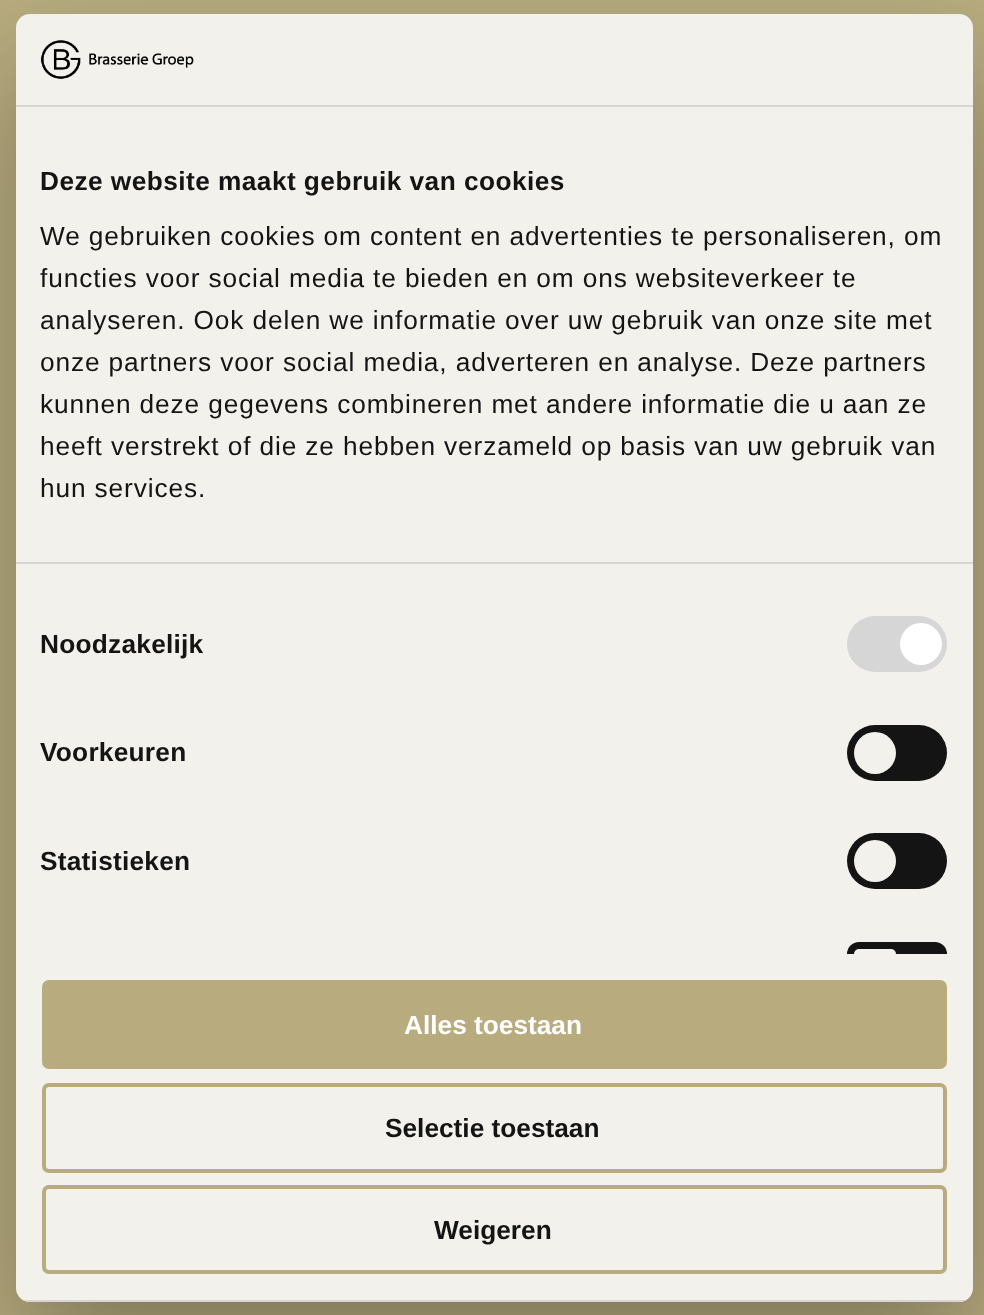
<!DOCTYPE html>
<meta charset="utf-8">
<style>body { margin: 0 } canvas { display: block }</style>
<canvas id="canvas" width="984" height="1315"></canvas>
<script type="module">
  const canvas = document.getElementById("canvas");
  const ctx = canvas.getContext("2d");
  ctx.miterLimit = 4;
  ctx.fontKerning = "normal";
  async function loadImage(src) {
    const img = new Image();
    img.src = src;
    await img.decode();
    return img;
  }

  ctx.fillStyle = "#b8ac7f";
  ctx.fillRect(0, 0, 984, 1315);
  ctx.fillStyle = "rgba(0, 0, 0, 0.3)";
  ctx.filter = "blur(59.5px)";
  ctx.beginPath();
  ctx.roundRect(16, 70, 957, 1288, 14);
  ctx.fill();
  ctx.filter = "none";
  ctx.fillStyle = "#f2f1ec";
  ctx.beginPath();
  ctx.roundRect(16, 14, 957, 1288, 14);
  ctx.fill();
  ctx.fillStyle = "#d6d6d6";
  ctx.fillRect(16, 105, 957, 2);
  ctx.drawImage(await loadImage("img1.png"), 40, 40, 154, 39);
  ctx.fillRect(16, 562, 957, 2);
  ctx.letterSpacing = "0.45px";
  ctx.font = "bold 26.25px Liberation Sans";
  ctx.fillStyle = "#141414";
  ctx.fillText("Deze website maakt gebruik van cookies", 40, 190);
  ctx.letterSpacing = "0.88px";
  ctx.font = "26.25px Liberation Sans";
  ctx.fillText("We gebruiken cookies om content en advertenties te personaliseren, om", 40, 245);
  ctx.fillText("functies voor social media te bieden en om ons websiteverkeer te", 40, 287);
  ctx.fillText("analyseren. Ook delen we informatie over uw gebruik van onze site met", 40, 329);
  ctx.fillText("onze partners voor social media, adverteren en analyse. Deze partners", 40, 371);
  ctx.fillText("kunnen deze gegevens combineren met andere informatie die u aan ze", 40, 413);
  ctx.fillText("heeft verstrekt of die ze hebben verzameld op basis van uw gebruik van", 40, 455);
  ctx.fillText("hun services.", 40, 497);
  ctx.letterSpacing = "0.25px";
  ctx.font = "bold 26.25px Liberation Sans";
  ctx.fillText("Noodzakelijk", 40, 653);
  ctx.fillStyle = "#d6d6d6";
  ctx.beginPath();
  ctx.roundRect(847, 616, 100, 56, 28);
  ctx.fill();
  ctx.fillStyle = "#ffffff";
  ctx.beginPath();
  ctx.arc(921, 644, 21, 0, Math.PI * 2);
  ctx.fill();
  ctx.fillStyle = "#141414";
  ctx.fillText("Voorkeuren", 40, 761);
  ctx.beginPath();
  ctx.roundRect(847, 725, 100, 56, 28);
  ctx.fill();
  ctx.fillStyle = "#f2f1ec";
  ctx.beginPath();
  ctx.arc(875, 753, 21, 0, Math.PI * 2);
  ctx.fill();
  ctx.fillStyle = "#141414";
  ctx.fillText("Statistieken", 40, 870);
  ctx.beginPath();
  ctx.roundRect(847, 833, 100, 56, 28);
  ctx.fill();
  ctx.fillStyle = "#f2f1ec";
  ctx.beginPath();
  ctx.arc(875, 861, 21, 0, Math.PI * 2);
  ctx.fill();
  ctx.fillStyle = "#141414";
  ctx.beginPath();
  ctx.roundRect(847, 942, 100, 12, [28, 28, 0, 0]);
  ctx.fill();
  ctx.fillStyle = "#f2f1ec";
  ctx.beginPath();
  ctx.roundRect(854, 949, 42, 5, [21, 21, 0, 0]);
  ctx.fill();
  ctx.save();
  ctx.beginPath();
  ctx.roundRect(16, 14, 957, 1288, 14);
  ctx.clip();
  ctx.fillStyle = "#d6d6d6";
  ctx.fillRect(16, 1300, 957, 2);
  ctx.restore();
  ctx.fillStyle = "#b8ac7f";
  ctx.beginPath();
  ctx.roundRect(44, 982, 901, 85, 5);
  ctx.fill();
  ctx.strokeStyle = "#b8ac7f";
  ctx.lineWidth = 4;
  ctx.stroke();
  ctx.letterSpacing = "0px";
  ctx.fillStyle = "#ffffff";
  ctx.fillText("Alles toestaan", 404, 1034);
  ctx.beginPath();
  ctx.roundRect(44, 1085, 901, 86, 5);
  ctx.stroke();
  ctx.fillStyle = "#141414";
  ctx.fillText("Selectie toestaan", 385, 1137);
  ctx.beginPath();
  ctx.roundRect(44, 1187, 901, 85, 5);
  ctx.stroke();
  ctx.fillText("Weigeren", 434, 1239);
</script>
